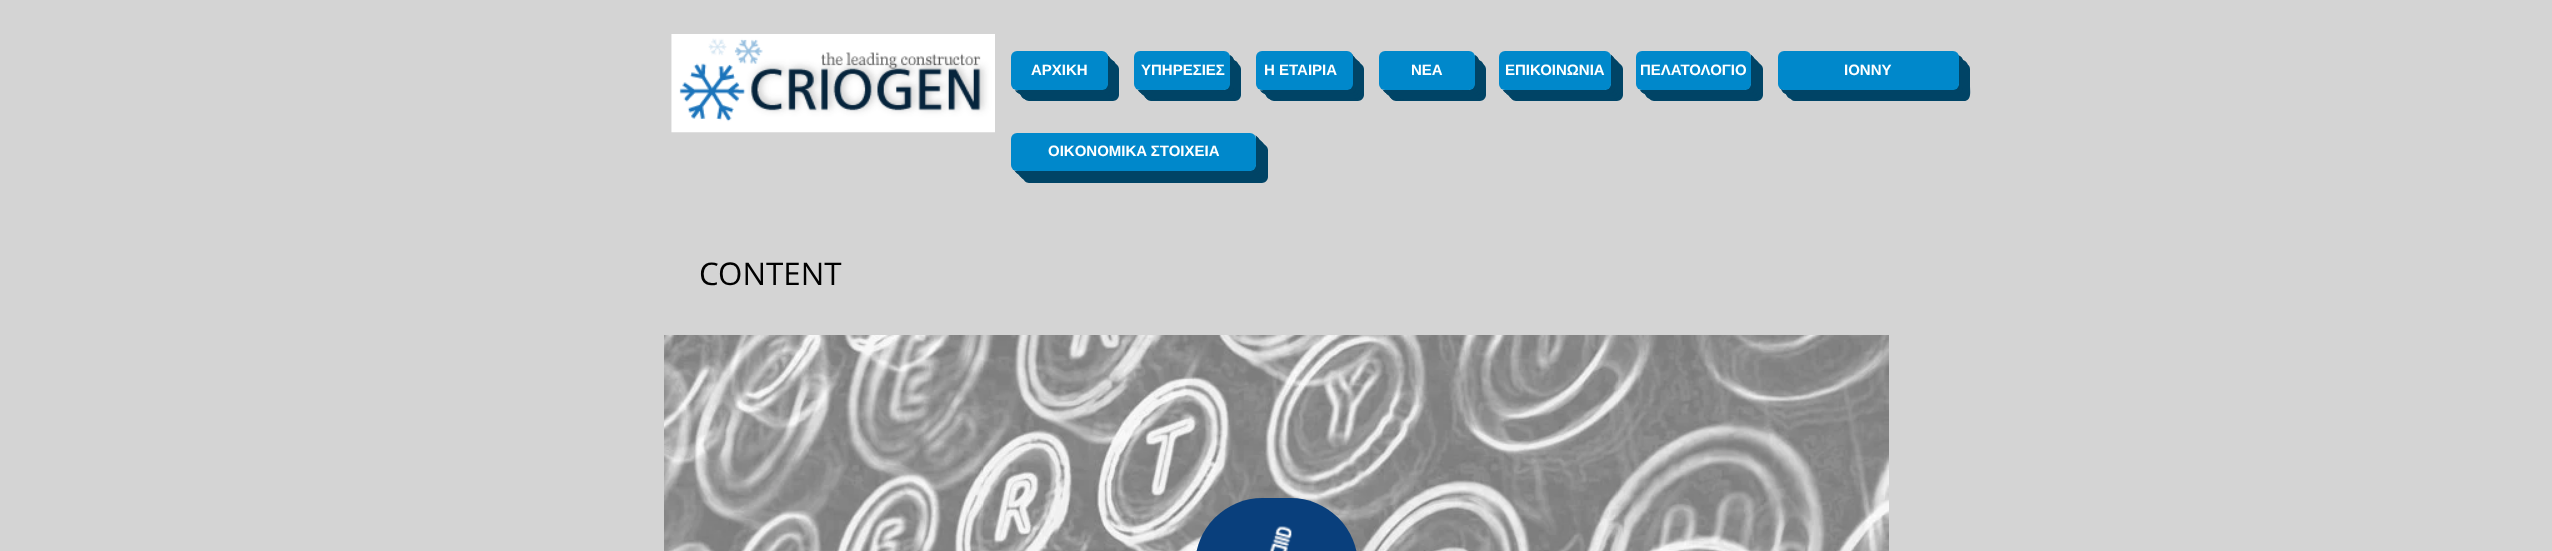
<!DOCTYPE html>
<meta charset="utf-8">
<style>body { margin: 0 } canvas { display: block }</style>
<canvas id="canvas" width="2552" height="551"></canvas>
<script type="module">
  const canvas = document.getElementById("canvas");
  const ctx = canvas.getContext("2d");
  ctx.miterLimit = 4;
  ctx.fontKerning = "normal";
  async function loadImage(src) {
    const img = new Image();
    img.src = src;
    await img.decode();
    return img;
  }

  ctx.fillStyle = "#d4d4d4";
  ctx.fillRect(0, 0, 2552, 551);
  ctx.drawImage(await loadImage("img1.png"), 671, 34, 324, 99);
  ctx.fillStyle = "#004466";
  ctx.beginPath();
  ctx.moveTo(1023, 90);
  ctx.lineTo(1023, 95);
  ctx.bezierCurveTo(1023, 98, 1026, 101, 1029, 101);
  ctx.lineTo(1113, 101);
  ctx.bezierCurveTo(1116, 101, 1119, 98, 1119, 95);
  ctx.lineTo(1119, 69);
  ctx.bezierCurveTo(1119, 66, 1116, 63, 1113, 63);
  ctx.lineTo(1108, 63);
  ctx.lineTo(1108, 84);
  ctx.bezierCurveTo(1108, 87, 1105, 90, 1101, 90);
  ctx.closePath();
  ctx.fill();
  ctx.beginPath();
  ctx.moveTo(1020, 90);
  ctx.bezierCurveTo(1020, 103, 1029, 99, 1040, 99);
  ctx.lineTo(1096, 99);
  ctx.bezierCurveTo(1118, 99, 1116, 101, 1116, 80);
  ctx.lineTo(1116, 70);
  ctx.bezierCurveTo(1116, 63, 1116, 60, 1108, 60);
  ctx.lineTo(1108, 84);
  ctx.bezierCurveTo(1108, 87, 1105, 90, 1101, 90);
  ctx.closePath();
  ctx.fill();
  ctx.beginPath();
  ctx.moveTo(1018, 90);
  ctx.bezierCurveTo(1018, 93, 1021, 96, 1024, 96);
  ctx.lineTo(1108, 96);
  ctx.bezierCurveTo(1111, 96, 1114, 93, 1114, 90);
  ctx.lineTo(1114, 64);
  ctx.bezierCurveTo(1114, 61, 1111, 58, 1108, 58);
  ctx.lineTo(1108, 84);
  ctx.bezierCurveTo(1108, 87, 1105, 90, 1101, 90);
  ctx.closePath();
  ctx.fill();
  ctx.beginPath();
  ctx.moveTo(1015, 90);
  ctx.bezierCurveTo(1016, 92, 1018, 94, 1021, 94);
  ctx.lineTo(1105, 94);
  ctx.bezierCurveTo(1108, 94, 1111, 91, 1111, 88);
  ctx.lineTo(1111, 61);
  ctx.bezierCurveTo(1111, 58, 1109, 56, 1107, 55);
  ctx.lineTo(1108, 75);
  ctx.bezierCurveTo(1108, 93, 1107, 90, 1087, 90);
  ctx.lineTo(1031, 90);
  ctx.bezierCurveTo(1026, 90, 1020, 92, 1015, 90);
  ctx.closePath();
  ctx.fill();
  ctx.beginPath();
  ctx.moveTo(1015, 89);
  ctx.bezierCurveTo(1016, 90, 1017, 91, 1019, 91);
  ctx.lineTo(1103, 91);
  ctx.bezierCurveTo(1106, 91, 1109, 88, 1109, 85);
  ctx.lineTo(1109, 59);
  ctx.bezierCurveTo(1109, 57, 1108, 55, 1107, 54);
  ctx.lineTo(1108, 58);
  ctx.lineTo(1108, 84);
  ctx.bezierCurveTo(1108, 87, 1105, 90, 1101, 90);
  ctx.lineTo(1018, 90);
  ctx.closePath();
  ctx.fill();
  ctx.fillStyle = "#0088cb";
  ctx.beginPath();
  ctx.roundRect(1011, 51, 97, 39, 6);
  ctx.fill();
  ctx.font = "bold 15px Liberation Sans";
  ctx.fillStyle = "#ffffff";
  ctx.fillText("ΑΡΧΙΚΗ", 1031, 75);
  ctx.fillStyle = "#004466";
  ctx.beginPath();
  ctx.moveTo(1145, 90);
  ctx.lineTo(1145, 95);
  ctx.bezierCurveTo(1145, 98, 1148, 101, 1151, 101);
  ctx.lineTo(1235, 101);
  ctx.bezierCurveTo(1238, 101, 1241, 98, 1241, 95);
  ctx.lineTo(1241, 69);
  ctx.bezierCurveTo(1241, 66, 1238, 63, 1235, 63);
  ctx.lineTo(1230, 63);
  ctx.lineTo(1230, 84);
  ctx.bezierCurveTo(1230, 87, 1227, 90, 1224, 90);
  ctx.closePath();
  ctx.fill();
  ctx.beginPath();
  ctx.moveTo(1143, 90);
  ctx.bezierCurveTo(1143, 103, 1152, 99, 1163, 99);
  ctx.lineTo(1219, 99);
  ctx.bezierCurveTo(1241, 99, 1239, 101, 1239, 80);
  ctx.lineTo(1239, 70);
  ctx.bezierCurveTo(1239, 63, 1238, 60, 1230, 60);
  ctx.lineTo(1230, 84);
  ctx.bezierCurveTo(1230, 87, 1227, 90, 1224, 90);
  ctx.closePath();
  ctx.fill();
  ctx.beginPath();
  ctx.moveTo(1140, 90);
  ctx.bezierCurveTo(1140, 93, 1143, 96, 1146, 96);
  ctx.lineTo(1230, 96);
  ctx.bezierCurveTo(1233, 96, 1236, 93, 1236, 90);
  ctx.lineTo(1236, 64);
  ctx.bezierCurveTo(1236, 61, 1233, 58, 1230, 58);
  ctx.lineTo(1230, 84);
  ctx.bezierCurveTo(1230, 87, 1227, 90, 1224, 90);
  ctx.closePath();
  ctx.fill();
  ctx.beginPath();
  ctx.moveTo(1138, 90);
  ctx.bezierCurveTo(1139, 92, 1141, 94, 1144, 94);
  ctx.lineTo(1228, 94);
  ctx.bezierCurveTo(1231, 94, 1234, 91, 1234, 88);
  ctx.lineTo(1234, 61);
  ctx.bezierCurveTo(1234, 58, 1232, 56, 1230, 55);
  ctx.lineTo(1230, 75);
  ctx.bezierCurveTo(1230, 93, 1229, 90, 1210, 90);
  ctx.closePath();
  ctx.fill();
  ctx.beginPath();
  ctx.moveTo(1136, 89);
  ctx.bezierCurveTo(1138, 90, 1139, 91, 1141, 91);
  ctx.lineTo(1225, 91);
  ctx.bezierCurveTo(1228, 91, 1231, 88, 1231, 85);
  ctx.lineTo(1231, 59);
  ctx.bezierCurveTo(1231, 57, 1230, 56, 1229, 55);
  ctx.lineTo(1230, 75);
  ctx.bezierCurveTo(1230, 93, 1229, 90, 1210, 90);
  ctx.lineTo(1154, 90);
  ctx.bezierCurveTo(1153, 90, 1141, 92, 1136, 89);
  ctx.closePath();
  ctx.fill();
  ctx.fillStyle = "#0088cb";
  ctx.beginPath();
  ctx.roundRect(1134, 51, 96, 39, 6);
  ctx.fill();
  ctx.fillStyle = "#ffffff";
  ctx.fillText("ΥΠΗΡΕΣΙΕΣ", 1141, 75);
  ctx.fillStyle = "#004466";
  ctx.beginPath();
  ctx.moveTo(1268, 90);
  ctx.lineTo(1268, 95);
  ctx.bezierCurveTo(1268, 98, 1271, 101, 1274, 101);
  ctx.lineTo(1358, 101);
  ctx.bezierCurveTo(1361, 101, 1364, 98, 1364, 95);
  ctx.lineTo(1364, 69);
  ctx.bezierCurveTo(1364, 66, 1361, 63, 1358, 63);
  ctx.lineTo(1352, 63);
  ctx.lineTo(1352, 84);
  ctx.bezierCurveTo(1352, 87, 1350, 90, 1346, 90);
  ctx.closePath();
  ctx.fill();
  ctx.beginPath();
  ctx.moveTo(1265, 90);
  ctx.bezierCurveTo(1265, 103, 1274, 99, 1285, 99);
  ctx.lineTo(1341, 99);
  ctx.bezierCurveTo(1363, 99, 1361, 101, 1361, 80);
  ctx.lineTo(1361, 70);
  ctx.bezierCurveTo(1361, 63, 1361, 60, 1352, 60);
  ctx.lineTo(1352, 84);
  ctx.bezierCurveTo(1352, 87, 1350, 90, 1346, 90);
  ctx.closePath();
  ctx.fill();
  ctx.beginPath();
  ctx.moveTo(1263, 90);
  ctx.bezierCurveTo(1263, 93, 1266, 96, 1269, 96);
  ctx.lineTo(1353, 96);
  ctx.bezierCurveTo(1356, 96, 1359, 93, 1359, 90);
  ctx.lineTo(1359, 64);
  ctx.bezierCurveTo(1359, 61, 1356, 58, 1353, 58);
  ctx.lineTo(1352, 58);
  ctx.lineTo(1352, 84);
  ctx.bezierCurveTo(1352, 87, 1350, 90, 1346, 90);
  ctx.closePath();
  ctx.fill();
  ctx.beginPath();
  ctx.moveTo(1260, 90);
  ctx.bezierCurveTo(1261, 92, 1263, 94, 1266, 94);
  ctx.lineTo(1350, 94);
  ctx.bezierCurveTo(1353, 94, 1356, 91, 1356, 88);
  ctx.lineTo(1356, 61);
  ctx.bezierCurveTo(1356, 58, 1354, 56, 1352, 55);
  ctx.lineTo(1352, 75);
  ctx.bezierCurveTo(1352, 93, 1352, 90, 1332, 90);
  ctx.lineTo(1276, 90);
  ctx.bezierCurveTo(1271, 90, 1265, 92, 1260, 90);
  ctx.closePath();
  ctx.fill();
  ctx.beginPath();
  ctx.moveTo(1260, 89);
  ctx.bezierCurveTo(1261, 90, 1262, 91, 1264, 91);
  ctx.lineTo(1348, 91);
  ctx.bezierCurveTo(1351, 91, 1354, 88, 1354, 85);
  ctx.lineTo(1354, 59);
  ctx.bezierCurveTo(1354, 57, 1353, 55, 1352, 54);
  ctx.lineTo(1352, 58);
  ctx.lineTo(1352, 84);
  ctx.bezierCurveTo(1352, 87, 1350, 90, 1346, 90);
  ctx.lineTo(1262, 90);
  ctx.closePath();
  ctx.fill();
  ctx.fillStyle = "#0088cb";
  ctx.beginPath();
  ctx.roundRect(1256, 51, 97, 39, 6);
  ctx.fill();
  ctx.fillStyle = "#ffffff";
  ctx.fillText("Η ΕΤΑΙΡΙΑ", 1264, 75);
  ctx.fillStyle = "#004466";
  ctx.beginPath();
  ctx.moveTo(1390, 90);
  ctx.lineTo(1390, 95);
  ctx.bezierCurveTo(1390, 98, 1393, 101, 1396, 101);
  ctx.lineTo(1480, 101);
  ctx.bezierCurveTo(1483, 101, 1486, 98, 1486, 95);
  ctx.lineTo(1486, 69);
  ctx.bezierCurveTo(1486, 66, 1483, 63, 1480, 63);
  ctx.lineTo(1475, 63);
  ctx.lineTo(1475, 84);
  ctx.bezierCurveTo(1475, 87, 1472, 90, 1469, 90);
  ctx.closePath();
  ctx.fill();
  ctx.beginPath();
  ctx.moveTo(1388, 90);
  ctx.bezierCurveTo(1388, 103, 1397, 99, 1408, 99);
  ctx.lineTo(1464, 99);
  ctx.bezierCurveTo(1486, 99, 1484, 101, 1484, 80);
  ctx.lineTo(1484, 70);
  ctx.bezierCurveTo(1484, 63, 1483, 60, 1475, 60);
  ctx.lineTo(1475, 84);
  ctx.bezierCurveTo(1475, 87, 1472, 90, 1469, 90);
  ctx.closePath();
  ctx.fill();
  ctx.beginPath();
  ctx.moveTo(1385, 90);
  ctx.bezierCurveTo(1385, 93, 1388, 96, 1391, 96);
  ctx.lineTo(1475, 96);
  ctx.bezierCurveTo(1478, 96, 1481, 93, 1481, 90);
  ctx.lineTo(1481, 64);
  ctx.bezierCurveTo(1481, 61, 1478, 58, 1475, 58);
  ctx.lineTo(1475, 84);
  ctx.bezierCurveTo(1475, 87, 1472, 90, 1469, 90);
  ctx.closePath();
  ctx.fill();
  ctx.beginPath();
  ctx.moveTo(1383, 90);
  ctx.bezierCurveTo(1384, 92, 1386, 94, 1389, 94);
  ctx.lineTo(1473, 94);
  ctx.bezierCurveTo(1476, 94, 1479, 91, 1479, 88);
  ctx.lineTo(1479, 61);
  ctx.bezierCurveTo(1479, 58, 1477, 56, 1475, 55);
  ctx.lineTo(1475, 75);
  ctx.bezierCurveTo(1475, 93, 1474, 90, 1455, 90);
  ctx.closePath();
  ctx.fill();
  ctx.beginPath();
  ctx.moveTo(1381, 89);
  ctx.bezierCurveTo(1383, 90, 1384, 91, 1386, 91);
  ctx.lineTo(1470, 91);
  ctx.bezierCurveTo(1473, 91, 1476, 88, 1476, 85);
  ctx.lineTo(1476, 59);
  ctx.bezierCurveTo(1476, 57, 1475, 56, 1474, 55);
  ctx.lineTo(1475, 75);
  ctx.bezierCurveTo(1475, 93, 1474, 90, 1455, 90);
  ctx.lineTo(1399, 90);
  ctx.bezierCurveTo(1398, 90, 1386, 92, 1381, 89);
  ctx.closePath();
  ctx.fill();
  ctx.fillStyle = "#0088cb";
  ctx.beginPath();
  ctx.roundRect(1379, 51, 96, 39, 6);
  ctx.fill();
  ctx.fillStyle = "#ffffff";
  ctx.fillText("ΝΕΑ", 1411, 75);
  ctx.fillStyle = "#004466";
  ctx.beginPath();
  ctx.moveTo(1510, 90);
  ctx.lineTo(1510, 95);
  ctx.bezierCurveTo(1510, 98, 1513, 101, 1516, 101);
  ctx.lineTo(1617, 101);
  ctx.bezierCurveTo(1620, 101, 1623, 98, 1623, 95);
  ctx.lineTo(1623, 69);
  ctx.bezierCurveTo(1623, 66, 1620, 63, 1617, 63);
  ctx.lineTo(1611, 63);
  ctx.lineTo(1611, 84);
  ctx.bezierCurveTo(1611, 87, 1608, 90, 1605, 90);
  ctx.closePath();
  ctx.fill();
  ctx.beginPath();
  ctx.moveTo(1508, 90);
  ctx.lineTo(1508, 93);
  ctx.bezierCurveTo(1508, 96, 1511, 99, 1514, 99);
  ctx.lineTo(1614, 99);
  ctx.bezierCurveTo(1617, 99, 1620, 96, 1620, 93);
  ctx.lineTo(1620, 66);
  ctx.bezierCurveTo(1620, 63, 1617, 60, 1614, 60);
  ctx.lineTo(1611, 60);
  ctx.lineTo(1611, 84);
  ctx.bezierCurveTo(1611, 87, 1608, 90, 1605, 90);
  ctx.closePath();
  ctx.fill();
  ctx.beginPath();
  ctx.moveTo(1505, 90);
  ctx.bezierCurveTo(1505, 93, 1508, 96, 1511, 96);
  ctx.lineTo(1612, 96);
  ctx.bezierCurveTo(1615, 96, 1618, 93, 1618, 90);
  ctx.lineTo(1618, 64);
  ctx.bezierCurveTo(1618, 61, 1615, 58, 1612, 58);
  ctx.lineTo(1611, 58);
  ctx.lineTo(1611, 84);
  ctx.bezierCurveTo(1611, 87, 1608, 90, 1605, 90);
  ctx.closePath();
  ctx.fill();
  ctx.beginPath();
  ctx.moveTo(1503, 90);
  ctx.bezierCurveTo(1504, 92, 1506, 94, 1509, 94);
  ctx.lineTo(1609, 94);
  ctx.bezierCurveTo(1612, 94, 1615, 91, 1615, 88);
  ctx.lineTo(1615, 61);
  ctx.bezierCurveTo(1615, 58, 1613, 56, 1611, 55);
  ctx.lineTo(1611, 85);
  ctx.bezierCurveTo(1609, 94, 1591, 90, 1588, 90);
  ctx.closePath();
  ctx.fill();
  ctx.beginPath();
  ctx.moveTo(1501, 89);
  ctx.bezierCurveTo(1503, 90, 1504, 91, 1506, 91);
  ctx.lineTo(1607, 91);
  ctx.bezierCurveTo(1610, 91, 1613, 88, 1613, 85);
  ctx.lineTo(1613, 59);
  ctx.bezierCurveTo(1613, 57, 1612, 55, 1610, 54);
  ctx.bezierCurveTo(1611, 55, 1611, 56, 1611, 58);
  ctx.lineTo(1611, 84);
  ctx.bezierCurveTo(1611, 87, 1608, 90, 1605, 90);
  ctx.lineTo(1505, 90);
  ctx.bezierCurveTo(1504, 90, 1502, 90, 1501, 89);
  ctx.closePath();
  ctx.fill();
  ctx.fillStyle = "#0088cb";
  ctx.beginPath();
  ctx.roundRect(1499, 51, 112, 39, 6);
  ctx.fill();
  ctx.fillStyle = "#ffffff";
  ctx.fillText("ΕΠΙΚΟΙΝΩΝΙΑ", 1505, 75);
  ctx.fillStyle = "#004466";
  ctx.beginPath();
  ctx.moveTo(1648, 90);
  ctx.lineTo(1648, 95);
  ctx.bezierCurveTo(1648, 98, 1651, 101, 1654, 101);
  ctx.lineTo(1757, 101);
  ctx.bezierCurveTo(1760, 101, 1763, 98, 1763, 95);
  ctx.lineTo(1763, 69);
  ctx.bezierCurveTo(1763, 66, 1760, 63, 1757, 63);
  ctx.lineTo(1751, 63);
  ctx.lineTo(1751, 84);
  ctx.bezierCurveTo(1751, 87, 1748, 90, 1745, 90);
  ctx.closePath();
  ctx.fill();
  ctx.beginPath();
  ctx.moveTo(1645, 90);
  ctx.lineTo(1645, 93);
  ctx.bezierCurveTo(1645, 96, 1648, 99, 1651, 99);
  ctx.lineTo(1754, 99);
  ctx.bezierCurveTo(1757, 99, 1760, 96, 1760, 93);
  ctx.lineTo(1760, 66);
  ctx.bezierCurveTo(1760, 63, 1757, 60, 1754, 60);
  ctx.lineTo(1751, 60);
  ctx.lineTo(1751, 84);
  ctx.bezierCurveTo(1751, 87, 1748, 90, 1745, 90);
  ctx.closePath();
  ctx.fill();
  ctx.beginPath();
  ctx.moveTo(1643, 90);
  ctx.bezierCurveTo(1643, 93, 1646, 96, 1649, 96);
  ctx.lineTo(1752, 96);
  ctx.bezierCurveTo(1755, 96, 1758, 93, 1758, 90);
  ctx.lineTo(1758, 64);
  ctx.bezierCurveTo(1758, 61, 1755, 58, 1752, 58);
  ctx.lineTo(1751, 58);
  ctx.lineTo(1751, 84);
  ctx.bezierCurveTo(1751, 87, 1748, 90, 1745, 90);
  ctx.closePath();
  ctx.fill();
  ctx.beginPath();
  ctx.moveTo(1640, 90);
  ctx.bezierCurveTo(1641, 92, 1643, 94, 1646, 94);
  ctx.lineTo(1749, 94);
  ctx.bezierCurveTo(1752, 94, 1755, 91, 1755, 88);
  ctx.lineTo(1755, 61);
  ctx.bezierCurveTo(1755, 58, 1753, 56, 1751, 55);
  ctx.lineTo(1751, 58);
  ctx.lineTo(1751, 84);
  ctx.bezierCurveTo(1751, 87, 1748, 90, 1745, 90);
  ctx.lineTo(1642, 90);
  ctx.closePath();
  ctx.fill();
  ctx.beginPath();
  ctx.moveTo(1640, 89);
  ctx.bezierCurveTo(1641, 90, 1642, 91, 1644, 91);
  ctx.lineTo(1747, 91);
  ctx.bezierCurveTo(1750, 91, 1753, 88, 1753, 85);
  ctx.lineTo(1753, 59);
  ctx.bezierCurveTo(1753, 57, 1752, 55, 1750, 54);
  ctx.bezierCurveTo(1751, 55, 1751, 56, 1751, 58);
  ctx.lineTo(1751, 84);
  ctx.bezierCurveTo(1751, 87, 1748, 90, 1745, 90);
  ctx.lineTo(1642, 90);
  ctx.closePath();
  ctx.fill();
  ctx.fillStyle = "#0088cb";
  ctx.beginPath();
  ctx.roundRect(1636, 51, 115, 39, 6);
  ctx.fill();
  ctx.fillStyle = "#ffffff";
  ctx.fillText("ΠΕΛΑΤΟΛΟΓΙΟ", 1640, 75);
  ctx.fillStyle = "#004466";
  ctx.beginPath();
  ctx.moveTo(1789, 90);
  ctx.bezierCurveTo(1789, 94, 1789, 101, 1795, 101);
  ctx.lineTo(1964, 101);
  ctx.bezierCurveTo(1972, 101, 1970, 91, 1970, 86);
  ctx.lineTo(1970, 69);
  ctx.bezierCurveTo(1970, 63, 1963, 63, 1959, 63);
  ctx.lineTo(1959, 84);
  ctx.bezierCurveTo(1959, 87, 1956, 90, 1952, 90);
  ctx.closePath();
  ctx.fill();
  ctx.beginPath();
  ctx.moveTo(1786, 90);
  ctx.lineTo(1786, 93);
  ctx.bezierCurveTo(1786, 96, 1789, 99, 1792, 99);
  ctx.lineTo(1962, 99);
  ctx.bezierCurveTo(1965, 99, 1968, 96, 1968, 93);
  ctx.lineTo(1968, 66);
  ctx.bezierCurveTo(1968, 63, 1965, 60, 1962, 60);
  ctx.lineTo(1959, 60);
  ctx.lineTo(1959, 84);
  ctx.bezierCurveTo(1959, 87, 1956, 90, 1952, 90);
  ctx.closePath();
  ctx.fill();
  ctx.beginPath();
  ctx.moveTo(1784, 90);
  ctx.bezierCurveTo(1784, 93, 1787, 96, 1790, 96);
  ctx.lineTo(1959, 96);
  ctx.bezierCurveTo(1962, 96, 1965, 93, 1965, 90);
  ctx.lineTo(1965, 64);
  ctx.bezierCurveTo(1965, 61, 1962, 58, 1959, 58);
  ctx.lineTo(1959, 84);
  ctx.bezierCurveTo(1959, 87, 1956, 90, 1952, 90);
  ctx.closePath();
  ctx.fill();
  ctx.beginPath();
  ctx.moveTo(1781, 89);
  ctx.bezierCurveTo(1782, 92, 1784, 94, 1787, 94);
  ctx.lineTo(1957, 94);
  ctx.bezierCurveTo(1960, 94, 1963, 91, 1963, 88);
  ctx.lineTo(1963, 61);
  ctx.bezierCurveTo(1963, 58, 1961, 56, 1958, 55);
  ctx.lineTo(1959, 58);
  ctx.lineTo(1959, 84);
  ctx.bezierCurveTo(1959, 87, 1956, 90, 1952, 90);
  ctx.lineTo(1784, 90);
  ctx.closePath();
  ctx.fill();
  ctx.beginPath();
  ctx.moveTo(1781, 89);
  ctx.bezierCurveTo(1782, 90, 1783, 91, 1785, 91);
  ctx.lineTo(1954, 91);
  ctx.bezierCurveTo(1957, 91, 1960, 88, 1960, 85);
  ctx.lineTo(1960, 59);
  ctx.bezierCurveTo(1960, 57, 1959, 56, 1958, 55);
  ctx.lineTo(1959, 58);
  ctx.lineTo(1959, 84);
  ctx.bezierCurveTo(1959, 87, 1956, 90, 1952, 90);
  ctx.lineTo(1784, 90);
  ctx.closePath();
  ctx.fill();
  ctx.fillStyle = "#0088cb";
  ctx.beginPath();
  ctx.roundRect(1778, 51, 181, 39, 6);
  ctx.fill();
  ctx.fillStyle = "#ffffff";
  ctx.fillText("ΙΟΝΝΥ", 1844, 75);
  ctx.fillStyle = "#004466";
  ctx.beginPath();
  ctx.moveTo(1023, 171);
  ctx.lineTo(1023, 177);
  ctx.bezierCurveTo(1023, 180, 1026, 183, 1029, 183);
  ctx.lineTo(1262, 183);
  ctx.bezierCurveTo(1265, 183, 1268, 180, 1268, 177);
  ctx.lineTo(1268, 150);
  ctx.bezierCurveTo(1268, 147, 1265, 144, 1262, 144);
  ctx.lineTo(1256, 144);
  ctx.lineTo(1256, 165);
  ctx.bezierCurveTo(1256, 168, 1253, 171, 1250, 171);
  ctx.closePath();
  ctx.fill();
  ctx.beginPath();
  ctx.moveTo(1020, 171);
  ctx.lineTo(1020, 174);
  ctx.bezierCurveTo(1020, 177, 1023, 180, 1026, 180);
  ctx.lineTo(1259, 180);
  ctx.bezierCurveTo(1262, 180, 1265, 177, 1265, 174);
  ctx.lineTo(1265, 147);
  ctx.bezierCurveTo(1265, 144, 1262, 141, 1259, 141);
  ctx.lineTo(1256, 141);
  ctx.lineTo(1256, 165);
  ctx.bezierCurveTo(1256, 168, 1253, 171, 1250, 171);
  ctx.closePath();
  ctx.fill();
  ctx.beginPath();
  ctx.moveTo(1018, 171);
  ctx.lineTo(1018, 172);
  ctx.bezierCurveTo(1018, 175, 1021, 178, 1024, 178);
  ctx.lineTo(1257, 178);
  ctx.bezierCurveTo(1260, 178, 1263, 175, 1263, 172);
  ctx.lineTo(1263, 145);
  ctx.bezierCurveTo(1263, 142, 1260, 139, 1257, 139);
  ctx.lineTo(1256, 139);
  ctx.lineTo(1256, 165);
  ctx.bezierCurveTo(1256, 168, 1253, 171, 1250, 171);
  ctx.closePath();
  ctx.fill();
  ctx.beginPath();
  ctx.moveTo(1015, 171);
  ctx.bezierCurveTo(1016, 173, 1018, 175, 1021, 175);
  ctx.lineTo(1254, 175);
  ctx.bezierCurveTo(1257, 175, 1260, 172, 1260, 169);
  ctx.lineTo(1260, 142);
  ctx.bezierCurveTo(1260, 139, 1258, 137, 1256, 136);
  ctx.lineTo(1256, 139);
  ctx.lineTo(1256, 165);
  ctx.bezierCurveTo(1256, 168, 1253, 171, 1250, 171);
  ctx.lineTo(1018, 171);
  ctx.closePath();
  ctx.fill();
  ctx.beginPath();
  ctx.moveTo(1014, 170);
  ctx.bezierCurveTo(1015, 172, 1017, 173, 1019, 173);
  ctx.lineTo(1252, 173);
  ctx.bezierCurveTo(1255, 173, 1258, 170, 1258, 167);
  ctx.lineTo(1258, 140);
  ctx.bezierCurveTo(1258, 138, 1257, 136, 1255, 135);
  ctx.bezierCurveTo(1256, 136, 1256, 137, 1256, 139);
  ctx.lineTo(1256, 165);
  ctx.bezierCurveTo(1256, 168, 1253, 171, 1250, 171);
  ctx.lineTo(1018, 171);
  ctx.bezierCurveTo(1016, 171, 1015, 171, 1014, 170);
  ctx.closePath();
  ctx.fill();
  ctx.fillStyle = "#0088cb";
  ctx.beginPath();
  ctx.roundRect(1011, 133, 245, 38, 6);
  ctx.fill();
  ctx.fillStyle = "#ffffff";
  ctx.fillText("OIKONOMIKA ΣΤΟΙΧΕΙΑ", 1048, 156);
  ctx.font = "31.25px Open Sans";
  ctx.fillStyle = "#000000";
  ctx.fillText("CONTENT", 699, 285);
  ctx.drawImage(await loadImage("img2.png"), 664, 335, 1225, 216);
  ctx.fillStyle = "#093f7c";
  ctx.beginPath();
  ctx.roundRect(1195, 498, 163, 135, 81.5);
  ctx.fill();
  ctx.drawImage(await loadImage("img3.png"), 1269, 526, 23, 25);
</script>
